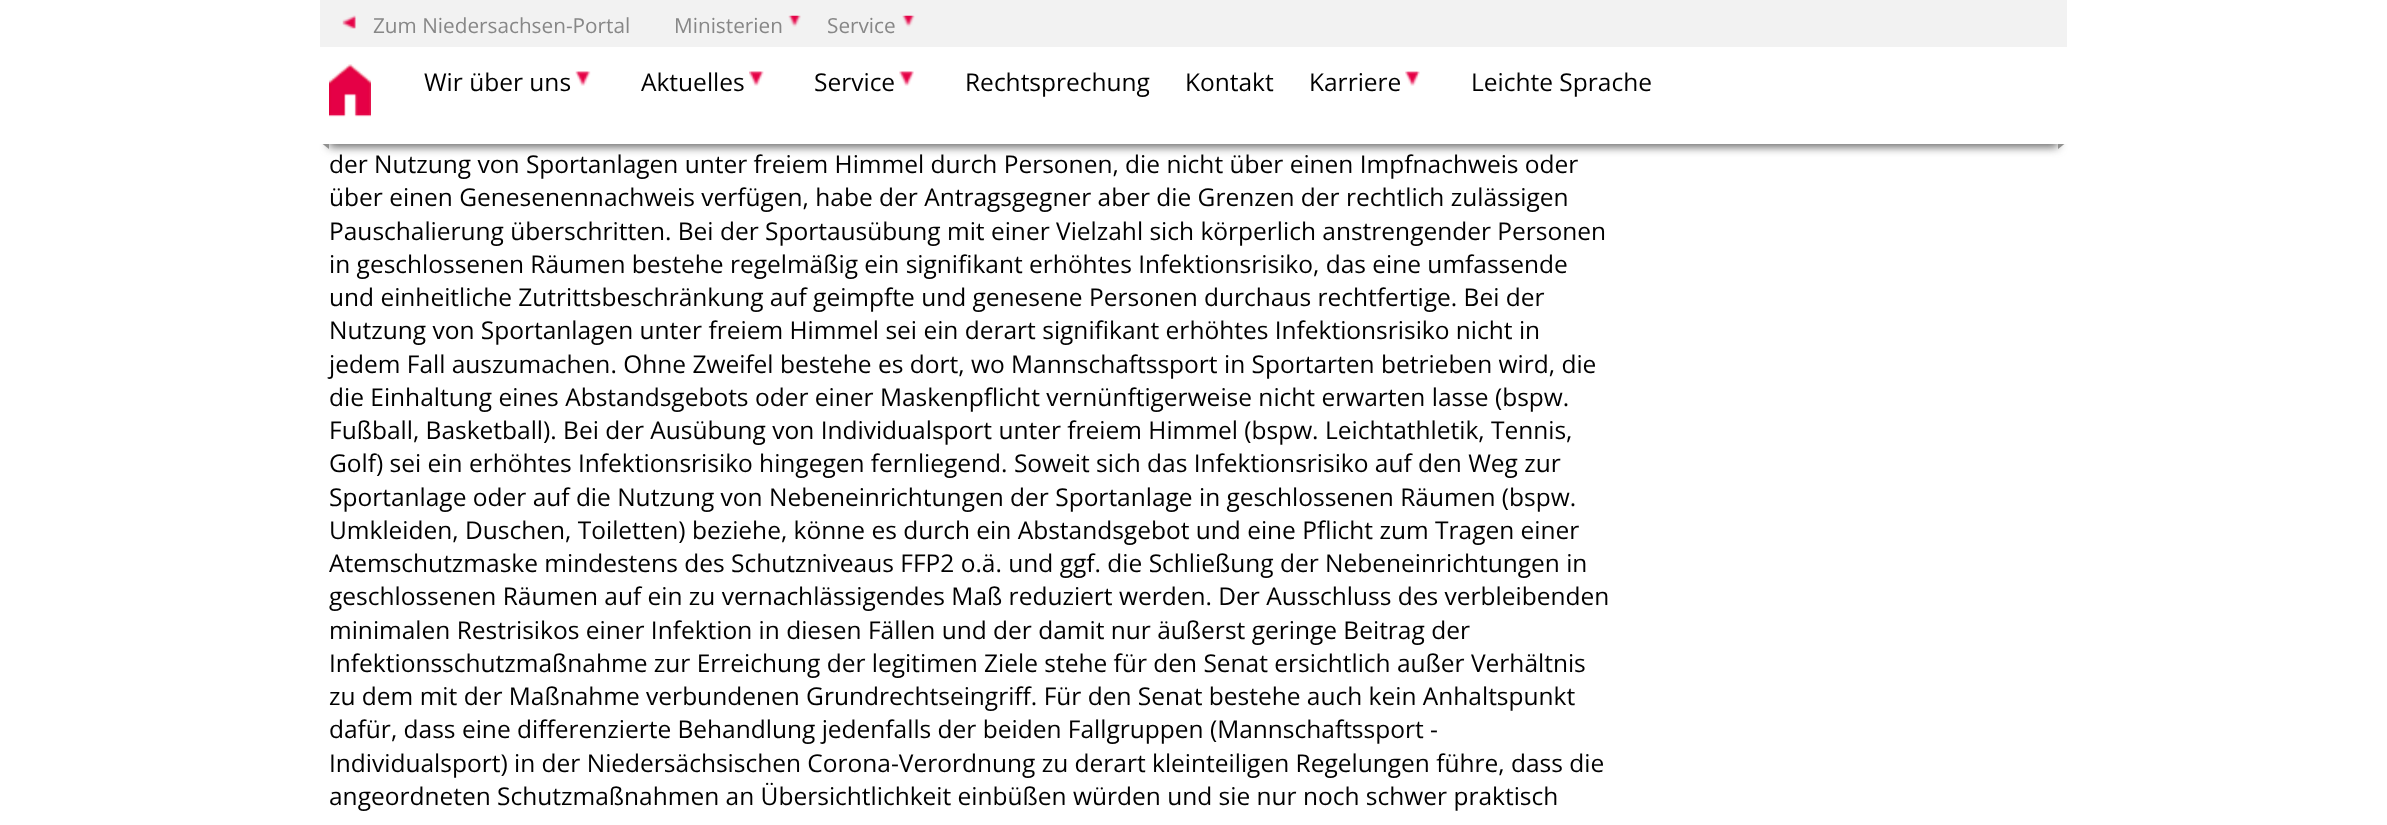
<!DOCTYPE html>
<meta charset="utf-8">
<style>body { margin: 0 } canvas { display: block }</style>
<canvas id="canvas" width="2387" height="825"></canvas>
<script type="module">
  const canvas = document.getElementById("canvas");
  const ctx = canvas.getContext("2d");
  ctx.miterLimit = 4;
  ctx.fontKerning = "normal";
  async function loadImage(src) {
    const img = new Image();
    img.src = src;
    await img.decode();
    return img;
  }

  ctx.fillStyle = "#ffffff";
  ctx.fillRect(0, 0, 2387, 825);
  ctx.fillStyle = "#666666";
  ctx.filter = "blur(5px)";
  ctx.beginPath();
  ctx.rect(329, 51, 1729, 96);
  ctx.fill();
  ctx.filter = "none";
  ctx.fillStyle = "#90908f";
  ctx.beginPath();
  ctx.moveTo(329, 143.5);
  ctx.lineTo(329, 149);
  ctx.lineTo(322, 143.5);
  ctx.closePath();
  ctx.fill();
  ctx.fillStyle = "#ffffff";
  ctx.fillRect(318, 42, 11, 102);
  ctx.fillStyle = "#90908f";
  ctx.beginPath();
  ctx.moveTo(2058, 149);
  ctx.lineTo(2058, 143.5);
  ctx.lineTo(2065, 143.5);
  ctx.closePath();
  ctx.fill();
  ctx.fillStyle = "#ffffff";
  ctx.fillRect(2058, 42, 11, 102);
  ctx.fillStyle = "#f2f2f2";
  ctx.fillRect(320, 0, 1747, 47);
  ctx.drawImage(await loadImage("img1.png"), 342, 15, 14, 14);
  ctx.font = "20.75px Open Sans";
  ctx.fillStyle = "#878787";
  ctx.fillText("Zum Niedersachsen-Portal", 373, 33);
  ctx.fillText("Ministerien", 674, 33);
  ctx.drawImage(await loadImage("img2.png"), 788, 15, 13, 12);
  ctx.fillText("Service", 827, 33);
  ctx.drawImage(await loadImage("img3.png"), 902, 15, 13, 12);
  ctx.fillStyle = "#ffffff";
  ctx.fillRect(329, 47, 1729, 97);
  ctx.drawImage(await loadImage("img4.png"), 329, 64, 42, 53);
  ctx.font = "24.5px Open Sans";
  ctx.fillStyle = "#000000";
  ctx.fillText("Wir über uns", 424, 91);
  ctx.drawImage(await loadImage("img5.png"), 575, 71, 16, 15);
  ctx.fillText("Aktuelles", 641, 91);
  ctx.drawImage(await loadImage("img6.png"), 749, 71, 15, 15);
  ctx.fillText("Service", 814, 91);
  ctx.drawImage(await loadImage("img7.png"), 899, 71, 15, 15);
  ctx.fillText("Rechtsprechung", 965, 91);
  ctx.fillText("Kontakt", 1185, 91);
  ctx.fillText("Karriere", 1309, 91);
  ctx.drawImage(await loadImage("img8.png"), 1405, 71, 15, 15);
  ctx.fillText("Leichte Sprache", 1471, 91);
  ctx.fillText("der Nutzung von Sportanlagen unter freiem Himmel durch Personen, die nicht über einen Impfnachweis oder", 329, 173);
  ctx.fillText("über einen Genesenennachweis verfügen, habe der Antragsgegner aber die Grenzen der rechtlich zulässigen", 329, 206);
  ctx.fillText("Pauschalierung überschritten. Bei der Sportausübung mit einer Vielzahl sich körperlich anstrengender Personen", 329, 240);
  ctx.fillText("in geschlossenen Räumen bestehe regelmäßig ein signifikant erhöhtes Infektionsrisiko, das eine umfassende", 329, 273);
  ctx.fillText("und einheitliche Zutrittsbeschränkung auf geimpfte und genesene Personen durchaus rechtfertige. Bei der", 329, 306);
  ctx.fillText("Nutzung von Sportanlagen unter freiem Himmel sei ein derart signifikant erhöhtes Infektionsrisiko nicht in", 329, 339);
  ctx.fillText("jedem Fall auszumachen. Ohne Zweifel bestehe es dort, wo Mannschaftssport in Sportarten betrieben wird, die", 329, 373);
  ctx.fillText("die Einhaltung eines Abstandsgebots oder einer Maskenpflicht vernünftigerweise nicht erwarten lasse (bspw.", 329, 406);
  ctx.fillText("Fußball, Basketball). Bei der Ausübung von Individualsport unter freiem Himmel (bspw. Leichtathletik, Tennis,", 329, 439);
  ctx.fillText("Golf) sei ein erhöhtes Infektionsrisiko hingegen fernliegend. Soweit sich das Infektionsrisiko auf den Weg zur", 329, 472);
  ctx.fillText("Sportanlage oder auf die Nutzung von Nebeneinrichtungen der Sportanlage in geschlossenen Räumen (bspw.", 329, 506);
  ctx.fillText("Umkleiden, Duschen, Toiletten) beziehe, könne es durch ein Abstandsgebot und eine Pflicht zum Tragen einer", 329, 539);
  ctx.fillText("Atemschutzmaske mindestens des Schutzniveaus FFP2 o.ä. und ggf. die Schließung der Nebeneinrichtungen in", 329, 572);
  ctx.fillText("geschlossenen Räumen auf ein zu vernachlässigendes Maß reduziert werden. Der Ausschluss des verbleibenden", 329, 605);
  ctx.fillText("minimalen Restrisikos einer Infektion in diesen Fällen und der damit nur äußerst geringe Beitrag der", 329, 639);
  ctx.fillText("Infektionsschutzmaßnahme zur Erreichung der legitimen Ziele stehe für den Senat ersichtlich außer Verhältnis", 329, 672);
  ctx.fillText("zu dem mit der Maßnahme verbundenen Grundrechtseingriff. Für den Senat bestehe auch kein Anhaltspunkt", 329, 705);
  ctx.fillText("dafür, dass eine differenzierte Behandlung jedenfalls der beiden Fallgruppen (Mannschaftssport -", 329, 738);
  ctx.fillText("Individualsport) in der Niedersächsischen Corona-Verordnung zu derart kleinteiligen Regelungen führe, dass die", 329, 772);
  ctx.fillText("angeordneten Schutzmaßnahmen an Übersichtlichkeit einbüßen würden und sie nur noch schwer praktisch", 329, 805);
</script>
